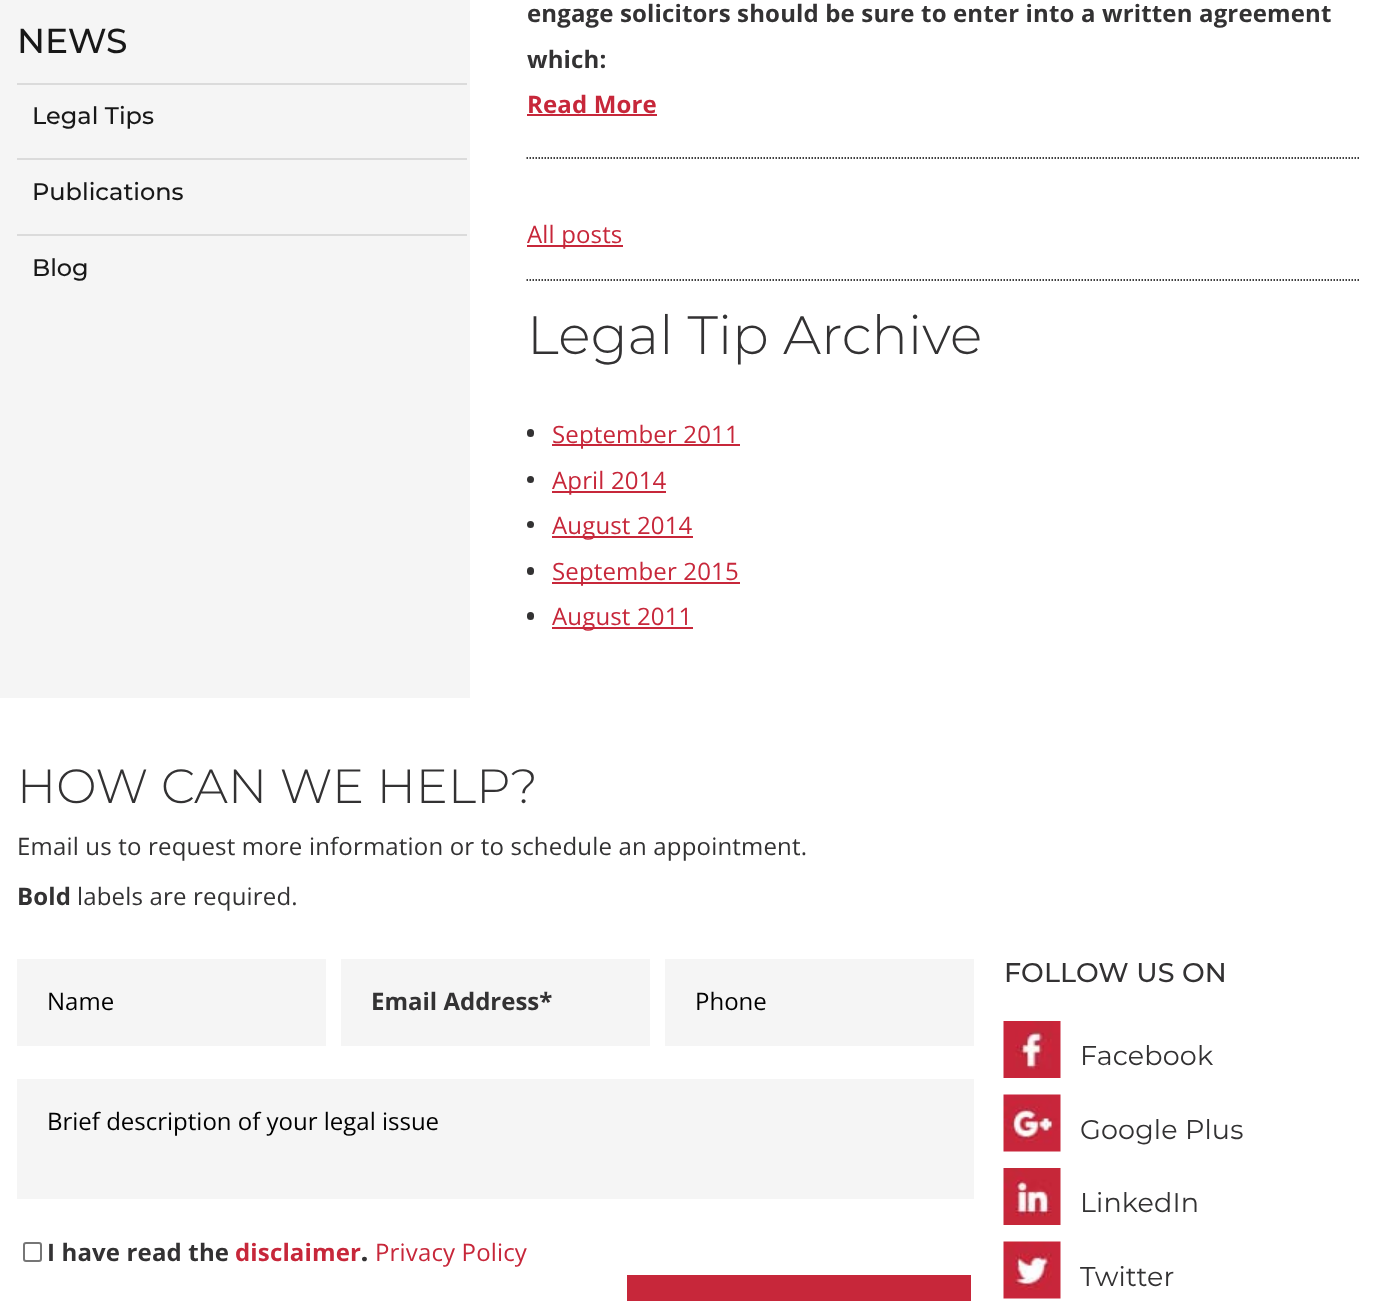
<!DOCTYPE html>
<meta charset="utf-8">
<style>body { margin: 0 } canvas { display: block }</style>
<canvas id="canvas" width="1376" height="1301"></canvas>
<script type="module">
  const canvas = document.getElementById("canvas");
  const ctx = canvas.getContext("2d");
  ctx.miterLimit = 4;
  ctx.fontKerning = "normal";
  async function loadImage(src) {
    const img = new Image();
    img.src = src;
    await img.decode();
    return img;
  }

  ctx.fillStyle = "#ffffff";
  ctx.fillRect(0, 0, 1376, 1301);
  ctx.fillStyle = "#f5f5f5";
  ctx.fillRect(0, 0, 470, 698);
  ctx.font = "500 34.5px Montserrat";
  ctx.fillStyle = "#181818";
  ctx.fillText("NEWS", 17, 53);
  ctx.fillStyle = "#dbdbdb";
  ctx.fillRect(17, 83, 450, 2);
  ctx.font = "500 24px Montserrat";
  ctx.fillStyle = "#181818";
  ctx.fillText("Legal Tips", 32, 124);
  ctx.fillStyle = "#dbdbdb";
  ctx.fillRect(17, 158, 450, 2);
  ctx.fillStyle = "#181818";
  ctx.fillText("Publications", 32, 200);
  ctx.fillStyle = "#dbdbdb";
  ctx.fillRect(17, 234, 450, 2);
  ctx.fillStyle = "#181818";
  ctx.fillText("Blog", 32, 276);
  ctx.beginPath();
  ctx.moveTo(526.5, 158);
  ctx.lineTo(1360.5, 158);
  ctx.strokeStyle = "#000000";
  ctx.lineWidth = 1.5;
  ctx.setLineDash([1.5, 1.5]);
  ctx.stroke();
  ctx.letterSpacing = "0.15px";
  ctx.font = "bold 24px Open Sans";
  ctx.fillStyle = "#333233";
  ctx.fillText("engage solicitors should be sure to enter into a written agreement", 527, 22);
  ctx.fillText("which:", 527, 68);
  ctx.fillStyle = "#c7273a";
  ctx.fillText("Read More", 527, 113);
  ctx.fillRect(527, 114, 130, 2);
  ctx.fillRect(527, 245, 96, 2);
  ctx.font = "24px Open Sans";
  ctx.fillText("All posts", 527, 243);
  ctx.beginPath();
  ctx.moveTo(526.5, 280);
  ctx.lineTo(1360.5, 280);
  ctx.stroke();
  ctx.font = "300 54px Montserrat";
  ctx.fillStyle = "#333233";
  ctx.fillText("Legal Tip Archive", 527, 354);
  ctx.beginPath();
  ctx.roundRect(527, 429, 7, 8, 3.5);
  ctx.fill();
  ctx.fillStyle = "#c7273a";
  ctx.fillRect(552, 444, 188, 2);
  ctx.font = "24px Open Sans";
  ctx.fillText("September 2011", 552, 443);
  ctx.fillStyle = "#333233";
  ctx.beginPath();
  ctx.arc(530.5, 479.5, 3.5, 0, Math.PI * 2);
  ctx.fill();
  ctx.fillStyle = "#c7273a";
  ctx.fillRect(552, 491, 114, 2);
  ctx.fillText("April 2014", 552, 489);
  ctx.fillStyle = "#333233";
  ctx.beginPath();
  ctx.arc(530.5, 524.5, 3.5, 0, Math.PI * 2);
  ctx.fill();
  ctx.fillStyle = "#c7273a";
  ctx.fillRect(552, 536, 141, 2);
  ctx.fillText("August 2014", 552, 534);
  ctx.fillStyle = "#333233";
  ctx.beginPath();
  ctx.roundRect(527, 567, 7, 8, 3.5);
  ctx.fill();
  ctx.fillStyle = "#c7273a";
  ctx.fillRect(552, 582, 188, 2);
  ctx.fillText("September 2015", 552, 580);
  ctx.fillStyle = "#333233";
  ctx.beginPath();
  ctx.roundRect(527, 612, 7, 8, 3.5);
  ctx.fill();
  ctx.fillStyle = "#c7273a";
  ctx.fillRect(552, 627, 141, 2);
  ctx.fillText("August 2011", 552, 625);
  ctx.font = "300 48px Montserrat";
  ctx.fillStyle = "#333233";
  ctx.fillText("HOW CAN WE HELP?", 17, 803);
  ctx.letterSpacing = "0.18px";
  ctx.font = "24px Open Sans";
  ctx.fillText("Email us to request more information or to schedule an appointment.", 17, 855);
  ctx.font = "bold 24px Open Sans";
  ctx.fillText("Bold", 17, 905);
  ctx.font = "24px Open Sans";
  ctx.fillText("labels are required.", 77, 905);
  ctx.fillStyle = "#f5f5f5";
  ctx.fillRect(17, 959, 309, 87);
  ctx.letterSpacing = "0px";
  ctx.fillStyle = "#000000";
  ctx.fillText("Name", 47, 1010);
  ctx.fillStyle = "#f5f5f5";
  ctx.fillRect(341, 959, 309, 87);
  ctx.font = "bold 24px Open Sans";
  ctx.fillStyle = "#333233";
  ctx.fillText("Email Address*", 371, 1010);
  ctx.fillStyle = "#f5f5f5";
  ctx.fillRect(665, 959, 309, 87);
  ctx.font = "24px Open Sans";
  ctx.fillStyle = "#000000";
  ctx.fillText("Phone", 695, 1010);
  ctx.fillStyle = "#f5f5f5";
  ctx.fillRect(17, 1079, 957, 120);
  ctx.fillStyle = "#000000";
  ctx.fillText("Brief description of your legal issue", 47, 1130);
  ctx.beginPath();
  ctx.roundRect(24, 1243, 17, 18, 2);
  ctx.strokeStyle = "#767676";
  ctx.lineWidth = 2;
  ctx.setLineDash([]);
  ctx.stroke();
  ctx.letterSpacing = "0.15px";
  ctx.font = "bold 24px Open Sans";
  ctx.fillStyle = "#333233";
  ctx.fillText("I have read the", 47, 1261);
  ctx.fillStyle = "#c7273a";
  ctx.fillText("disclaimer", 235, 1261);
  ctx.font = "800 24px Open Sans";
  ctx.fillStyle = "#333233";
  ctx.fillText(".", 361, 1261);
  ctx.font = "24px Open Sans";
  ctx.fillStyle = "#c7273a";
  ctx.fillText("Privacy Policy", 375, 1261);
  ctx.fillRect(627, 1275, 344, 26);
  ctx.font = "500 27px Montserrat";
  ctx.fillStyle = "#333233";
  ctx.fillText("FOLLOW US ON", 1004, 982);
  ctx.drawImage(await loadImage("img1.png"), 1003, 1021, 58, 57);
  ctx.font = "27px Montserrat";
  ctx.fillText("Facebook", 1080, 1065);
  ctx.drawImage(await loadImage("img2.png"), 1003, 1094, 58, 58);
  ctx.fillText("Google Plus", 1080, 1139);
  ctx.drawImage(await loadImage("img3.png"), 1003, 1168, 58, 57);
  ctx.fillText("LinkedIn", 1080, 1212);
  ctx.drawImage(await loadImage("img4.png"), 1003, 1241, 58, 58);
  ctx.fillText("Twitter", 1080, 1286);
</script>
